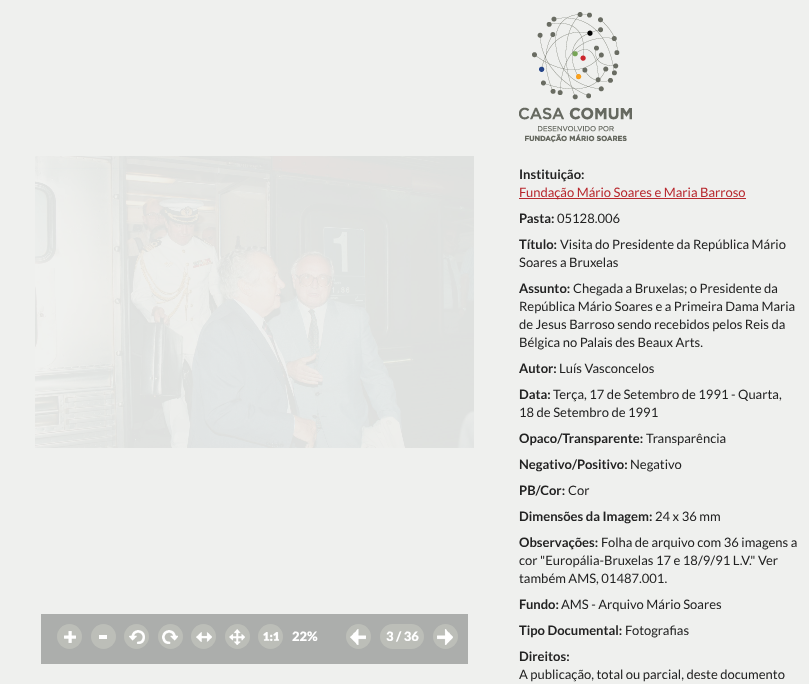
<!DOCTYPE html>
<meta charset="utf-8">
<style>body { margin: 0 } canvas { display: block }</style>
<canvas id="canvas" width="809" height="684"></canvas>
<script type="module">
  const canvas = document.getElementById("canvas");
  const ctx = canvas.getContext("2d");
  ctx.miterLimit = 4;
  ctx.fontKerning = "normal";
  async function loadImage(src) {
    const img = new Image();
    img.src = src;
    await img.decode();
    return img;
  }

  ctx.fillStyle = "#eff0ee";
  ctx.fillRect(0, 0, 809, 684);
  ctx.drawImage(await loadImage("img1.png"), 35, 156, 439, 292);
  ctx.drawImage(await loadImage("img2.png"), 519, 12, 113, 131);
  ctx.font = "bold 13px Lato";
  ctx.fillStyle = "#222222";
  ctx.fillText("Instituição:", 519, 179);
  ctx.fillStyle = "#b8292f";
  ctx.fillRect(519, 198, 227, 1);
  ctx.font = "13px Lato";
  ctx.fillText("Fundação Mário Soares e Maria Barroso", 519, 197);
  ctx.font = "bold 13px Lato";
  ctx.fillStyle = "#222222";
  ctx.fillText("Pasta:", 519, 223);
  ctx.font = "13px Lato";
  ctx.fillText("05128.006", 557, 223);
  ctx.font = "bold 13px Lato";
  ctx.fillText("Título:", 519, 249);
  ctx.font = "13px Lato";
  ctx.fillText("Visita do Presidente da República Mário", 560, 249);
  ctx.fillText("Soares a Bruxelas", 519, 267);
  ctx.font = "bold 13px Lato";
  ctx.fillText("Assunto:", 519, 293);
  ctx.font = "13px Lato";
  ctx.fillText("Chegada a Bruxelas; o Presidente da", 573, 293);
  ctx.fillText("República Mário Soares e a Primeira Dama Maria", 519, 311);
  ctx.fillText("de Jesus Barroso sendo recebidos pelos Reis da", 519, 329);
  ctx.fillText("Bélgica no Palais des Beaux Arts.", 519, 347);
  ctx.font = "bold 13px Lato";
  ctx.fillText("Autor:", 519, 373);
  ctx.font = "13px Lato";
  ctx.fillText("Luís Vasconcelos", 559, 373);
  ctx.font = "bold 13px Lato";
  ctx.fillText("Data:", 519, 399);
  ctx.font = "13px Lato";
  ctx.fillText("Terça, 17 de Setembro de 1991 - Quarta,", 553, 399);
  ctx.fillText("18 de Setembro de 1991", 519, 417);
  ctx.font = "bold 13px Lato";
  ctx.fillText("Opaco/Transparente:", 519, 443);
  ctx.font = "13px Lato";
  ctx.fillText("Transparência", 646, 443);
  ctx.font = "bold 13px Lato";
  ctx.fillText("Negativo/Positivo:", 519, 469);
  ctx.font = "13px Lato";
  ctx.fillText("Negativo", 630, 469);
  ctx.font = "bold 13px Lato";
  ctx.fillText("PB/Cor:", 519, 495);
  ctx.font = "13px Lato";
  ctx.fillText("Cor", 568, 495);
  ctx.font = "bold 13px Lato";
  ctx.fillText("Dimensões da Imagem:", 519, 521);
  ctx.font = "13px Lato";
  ctx.fillText("24 x 36 mm", 655, 521);
  ctx.font = "bold 13px Lato";
  ctx.fillText("Observações:", 519, 547);
  ctx.font = "13px Lato";
  ctx.fillText("Folha de arquivo com 36 imagens a", 601, 547);
  ctx.fillText("cor \"Europália-Bruxelas 17 e 18/9/91 L.V.\" Ver", 519, 565);
  ctx.fillText("também AMS, 01487.001.", 519, 583);
  ctx.font = "bold 13px Lato";
  ctx.fillText("Fundo:", 519, 609);
  ctx.font = "13px Lato";
  ctx.fillText("AMS - Arquivo Mário Soares", 561, 609);
  ctx.font = "bold 13px Lato";
  ctx.fillText("Tipo Documental:", 519, 635);
  ctx.font = "13px Lato";
  ctx.fillText("Fotografias", 625, 635);
  ctx.font = "bold 13px Lato";
  ctx.fillText("Direitos:", 519, 661);
  ctx.font = "13px Lato";
  ctx.fillText("A publicação, total ou parcial, deste documento", 519, 679);
  ctx.fillStyle = "#acaeac";
  ctx.fillRect(41, 614, 427, 50);
  ctx.fillStyle = "#bcbeb8";
  ctx.beginPath();
  ctx.arc(69.5, 636.5, 12.5, 0, Math.PI * 2);
  ctx.fill();
  ctx.drawImage(await loadImage("img3.png"), 64, 631, 12, 12);
  ctx.beginPath();
  ctx.arc(103.5, 636.5, 12.5, 0, Math.PI * 2);
  ctx.fill();
  ctx.fillStyle = "#ffffff";
  ctx.fillRect(99, 635, 8, 4);
  ctx.fillStyle = "#bcbeb8";
  ctx.beginPath();
  ctx.arc(136.5, 636.5, 12.5, 0, Math.PI * 2);
  ctx.fill();
  ctx.drawImage(await loadImage("img4.png"), 129, 630, 16, 14);
  ctx.beginPath();
  ctx.arc(170.5, 636.5, 12.5, 0, Math.PI * 2);
  ctx.fill();
  ctx.drawImage(await loadImage("img5.png"), 162, 630, 16, 14);
  ctx.beginPath();
  ctx.arc(203.5, 636.5, 12.5, 0, Math.PI * 2);
  ctx.fill();
  ctx.drawImage(await loadImage("img6.png"), 196, 632, 16, 10);
  ctx.beginPath();
  ctx.arc(237.5, 636.5, 12.5, 0, Math.PI * 2);
  ctx.fill();
  ctx.drawImage(await loadImage("img7.png"), 229, 629, 16, 16);
  ctx.beginPath();
  ctx.arc(270.5, 636.5, 12.5, 0, Math.PI * 2);
  ctx.fill();
  ctx.drawImage(await loadImage("img8.png"), 263, 632, 16, 9);
  ctx.font = "900 13px Lato";
  ctx.fillStyle = "#ffffff";
  ctx.fillText("22%", 292, 641);
  ctx.fillStyle = "#bcbeb8";
  ctx.beginPath();
  ctx.arc(358.5, 636.5, 12.5, 0, Math.PI * 2);
  ctx.fill();
  ctx.drawImage(await loadImage("img9.png"), 350, 629, 16, 16);
  ctx.beginPath();
  ctx.roundRect(380, 624, 44, 25, 12.5);
  ctx.fill();
  ctx.fillStyle = "#ffffff";
  ctx.fillText("3 / 36", 386, 641);
  ctx.fillStyle = "#bcbeb8";
  ctx.beginPath();
  ctx.arc(445.5, 636.5, 12.5, 0, Math.PI * 2);
  ctx.fill();
  ctx.drawImage(await loadImage("img10.png"), 437, 629, 16, 16);
</script>
